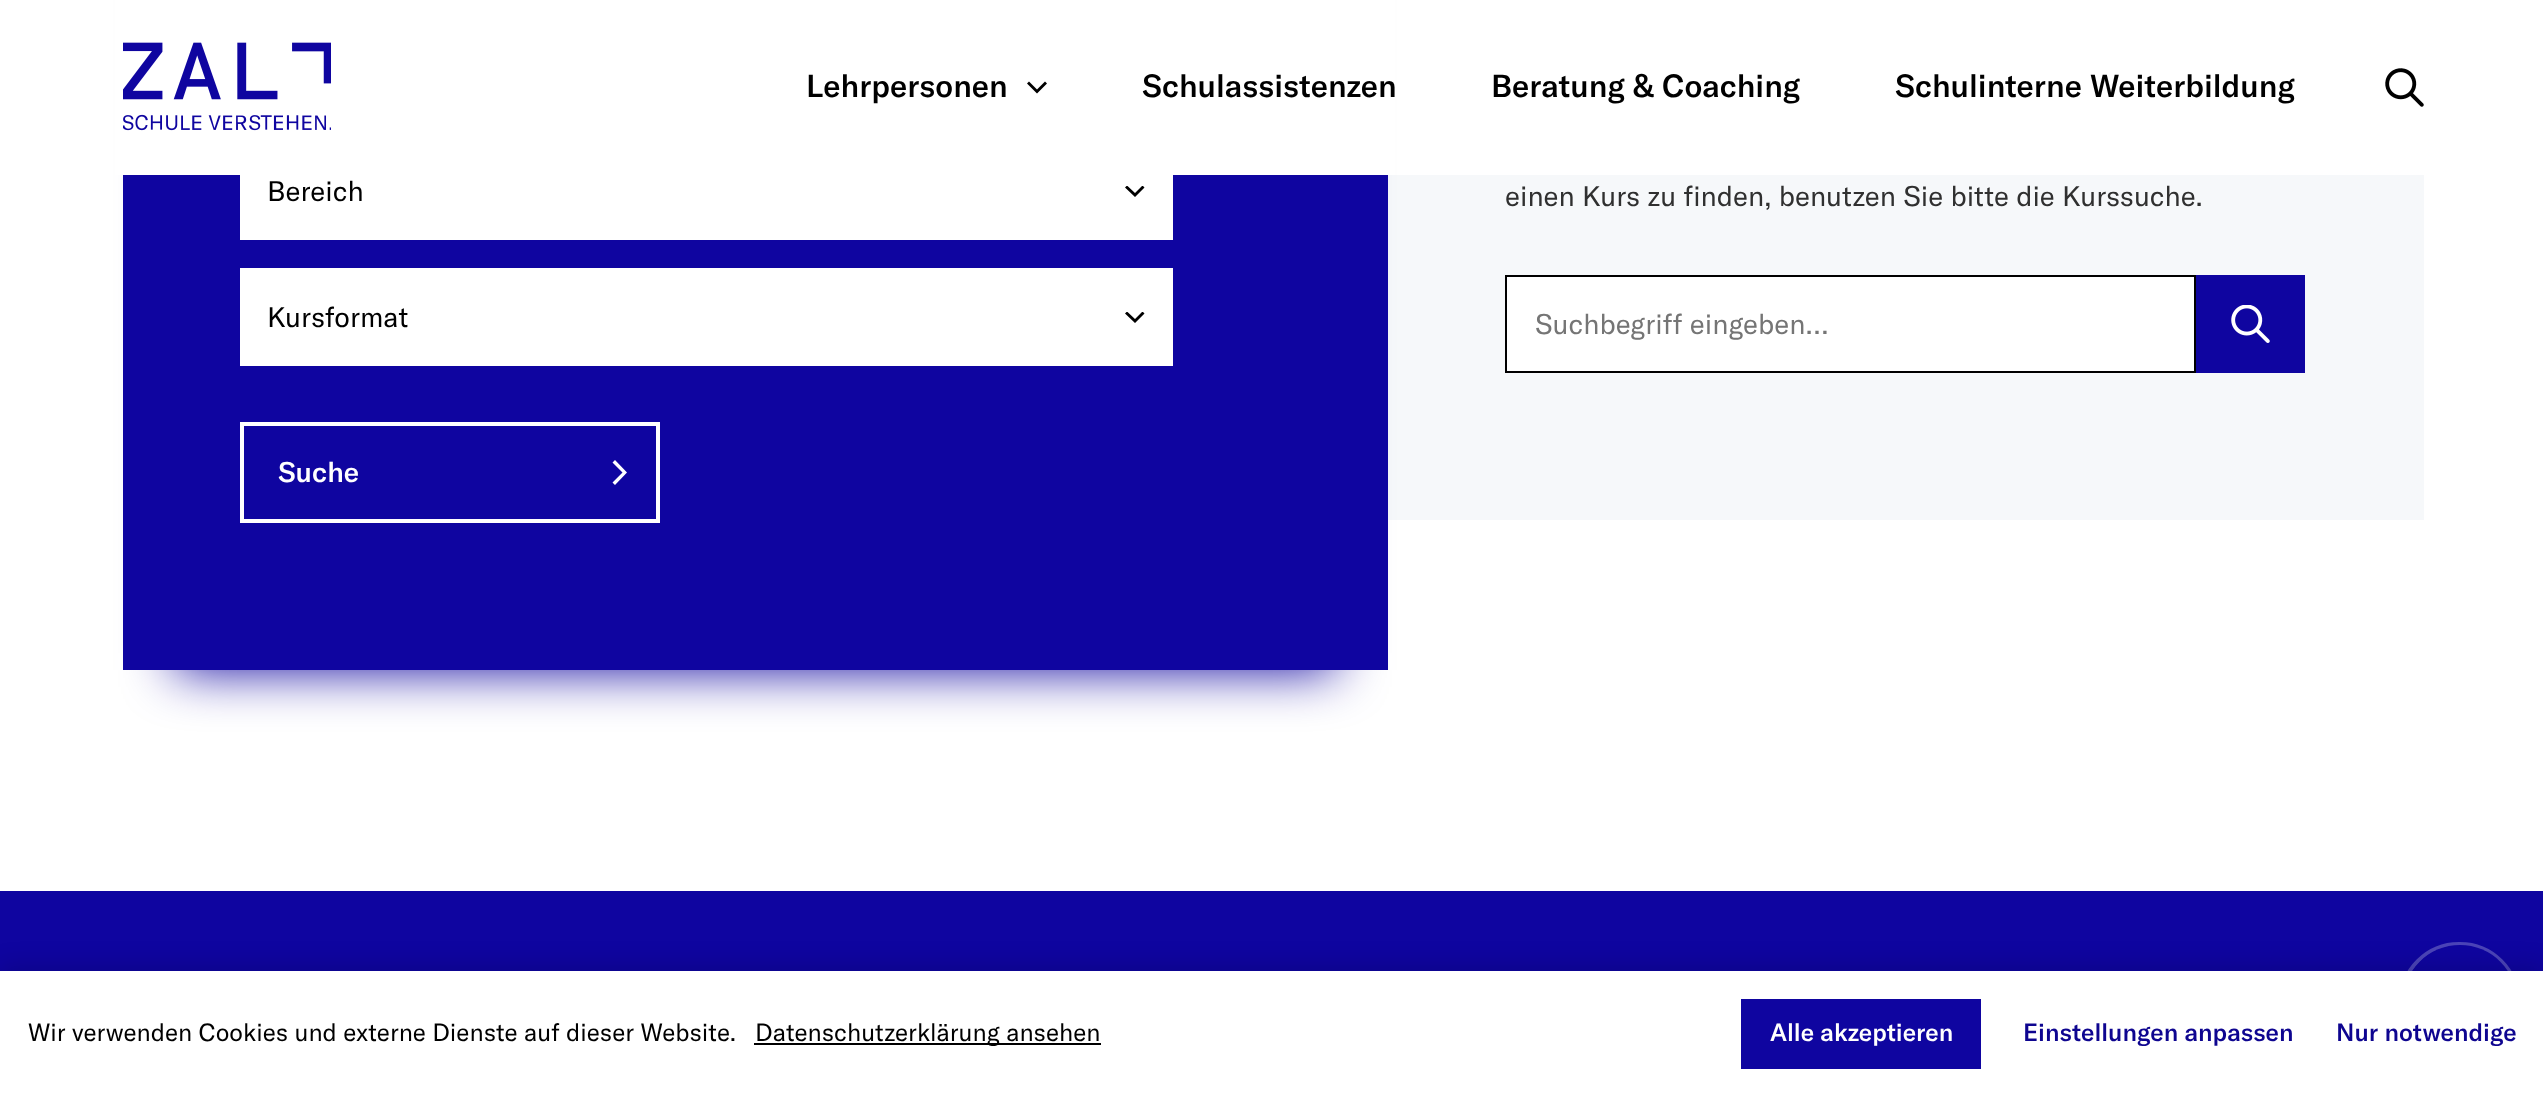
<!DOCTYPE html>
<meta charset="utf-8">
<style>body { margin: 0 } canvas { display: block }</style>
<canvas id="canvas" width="2543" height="1096"></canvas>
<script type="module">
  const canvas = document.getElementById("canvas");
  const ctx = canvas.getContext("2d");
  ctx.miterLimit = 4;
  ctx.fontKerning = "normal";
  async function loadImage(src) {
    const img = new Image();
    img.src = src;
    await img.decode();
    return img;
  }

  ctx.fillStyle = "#ffffff";
  ctx.fillRect(0, 0, 2543, 1096);
  ctx.fillStyle = "#f6f8fa";
  ctx.fillRect(1388, 175, 1036, 345);
  ctx.fillStyle = "#0f05a0";
  ctx.filter = "blur(26px)";
  ctx.beginPath();
  ctx.rect(175, -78, 1160, 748);
  ctx.fill();
  ctx.filter = "none";
  ctx.fillStyle = "#ffffff";
  ctx.fillRect(115, 0, 1280, 175);
  ctx.drawImage(await loadImage("img1.png"), 123, 42, 208, 89);
  ctx.font = "500 31.5px GT America";
  ctx.fillStyle = "#000000";
  ctx.fillText("Lehrpersonen", 806, 97);
  ctx.beginPath();
  ctx.moveTo(1027, 83.5);
  ctx.lineTo(1029, 81.5);
  ctx.lineTo(1037, 89.5);
  ctx.lineTo(1045, 81.5);
  ctx.lineTo(1047, 83.5);
  ctx.lineTo(1037, 93.5);
  ctx.closePath();
  ctx.fill("evenodd");
  ctx.fillText("Schulassistenzen", 1142, 97);
  ctx.fillText("Beratung & Coaching", 1491, 97);
  ctx.fillText("Schulinterne Weiterbildung", 1895, 97);
  ctx.drawImage(await loadImage("img2.png"), 2385, 68, 39, 39);
  ctx.fillStyle = "#0f05a0";
  ctx.fillRect(123, 175, 1265, 495);
  ctx.fillStyle = "#ffffff";
  ctx.fillRect(240, 175, 933, 65);
  ctx.save();
  ctx.beginPath();
  ctx.rect(1125, 186, 20, 12);
  ctx.clip();
  ctx.fillStyle = "#000000";
  ctx.beginPath();
  ctx.moveTo(1125, 187.5);
  ctx.lineTo(1127, 185.5);
  ctx.lineTo(1135, 193);
  ctx.lineTo(1142.5, 185.5);
  ctx.lineTo(1144.5, 187.5);
  ctx.lineTo(1135, 197);
  ctx.closePath();
  ctx.fill("evenodd");
  ctx.restore();
  ctx.font = "28px GT America";
  ctx.fillStyle = "#000000";
  ctx.fillText("Bereich", 267, 201);
  ctx.fillStyle = "#ffffff";
  ctx.fillRect(240, 268, 933, 98);
  ctx.save();
  ctx.beginPath();
  ctx.rect(1125, 312, 20, 12);
  ctx.clip();
  ctx.fillStyle = "#000000";
  ctx.beginPath();
  ctx.moveTo(1125, 313.5);
  ctx.lineTo(1127, 311.5);
  ctx.lineTo(1135, 319);
  ctx.lineTo(1142.5, 311.5);
  ctx.lineTo(1144.5, 313.5);
  ctx.lineTo(1135, 323);
  ctx.closePath();
  ctx.fill("evenodd");
  ctx.restore();
  ctx.fillStyle = "#000000";
  ctx.fillText("Kursformat", 267, 327);
  ctx.fillStyle = "#ffffff";
  ctx.beginPath();
  ctx.moveTo(615, 460);
  ctx.lineTo(627, 472.5);
  ctx.lineTo(615, 485);
  ctx.lineTo(612.5, 482.5);
  ctx.lineTo(622.5, 472.5);
  ctx.lineTo(612.5, 462.5);
  ctx.closePath();
  ctx.fill("evenodd");
  ctx.strokeStyle = "#ffffff";
  ctx.lineWidth = 4;
  ctx.strokeRect(242, 424, 416, 97);
  ctx.font = "500 28px GT America";
  ctx.fillText("Suche", 278, 482);
  ctx.font = "28px GT America";
  ctx.fillStyle = "#303030";
  ctx.fillText("einen Kurs zu finden, benutzen Sie bitte die Kurssuche.", 1505, 206);
  ctx.fillStyle = "#ffffff";
  ctx.beginPath();
  ctx.rect(1506, 276, 689, 96);
  ctx.fill();
  ctx.strokeStyle = "#000000";
  ctx.lineWidth = 2;
  ctx.stroke();
  ctx.fillStyle = "#757575";
  ctx.fillText("Suchbegriff eingeben…", 1535, 334);
  ctx.fillStyle = "#0f05a0";
  ctx.fillRect(2196, 275, 109, 98);
  ctx.drawImage(await loadImage("img3.png"), 2231, 305, 39, 38);
  ctx.fillRect(0, 891, 2543, 80);
  ctx.beginPath();
  ctx.roundRect(2401, 944, 117, 116, 58);
  ctx.strokeStyle = "#4b44b8";
  ctx.lineWidth = 4;
  ctx.stroke();
  ctx.beginPath();
  ctx.arc(2460, 1002, 57, 0, Math.PI * 2);
  ctx.fill();
  ctx.fillStyle = "rgba(0, 0, 0, 0.15)";
  ctx.filter = "blur(12px)";
  ctx.beginPath();
  ctx.rect(0, 966, 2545, 126);
  ctx.fill();
  ctx.filter = "none";
  ctx.fillStyle = "#ffffff";
  ctx.fillRect(0, 971, 2543, 125);
  ctx.font = "24.5px GT America";
  ctx.fillStyle = "#000000";
  ctx.fillText("Wir verwenden Cookies und externe Dienste auf dieser Website.", 28, 1041);
  ctx.fillRect(754, 1043, 347, 2);
  ctx.fillText("Datenschutzerklärung ansehen", 755, 1041);
  ctx.fillStyle = "#0f05a0";
  ctx.fillRect(1741, 999, 240, 70);
  ctx.font = "500 24.5px GT America";
  ctx.fillStyle = "#ffffff";
  ctx.fillText("Alle akzeptieren", 1770, 1041);
  ctx.fillStyle = "#0e0590";
  ctx.fillText("Einstellungen anpassen", 2023, 1041);
  ctx.fillText("Nur notwendige", 2336, 1041);
</script>
